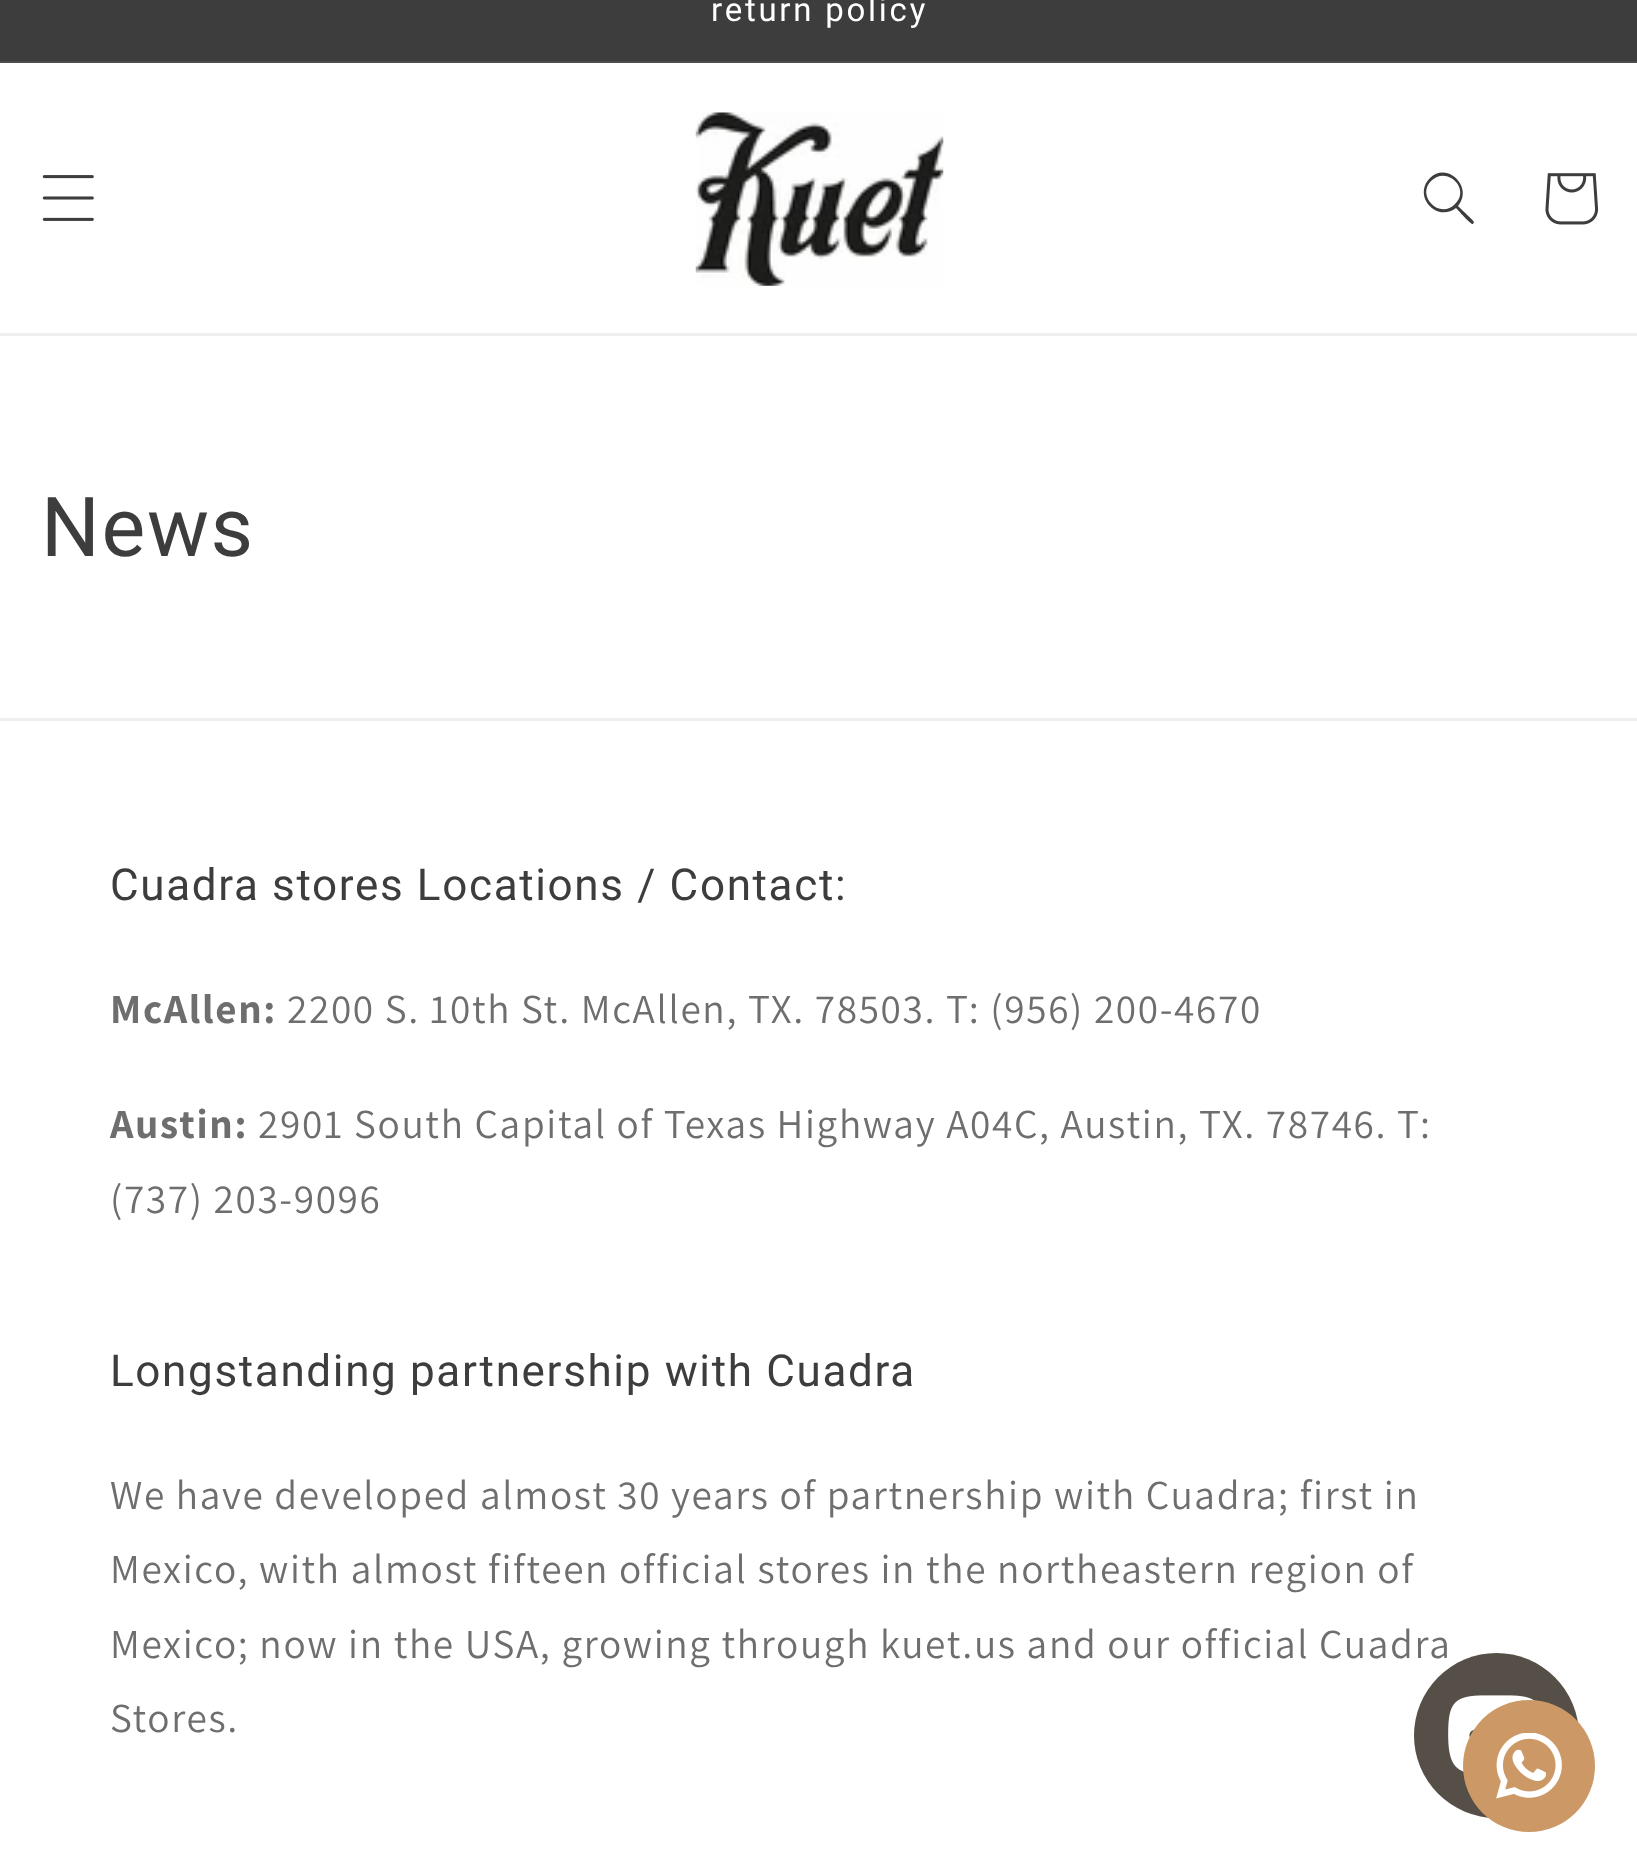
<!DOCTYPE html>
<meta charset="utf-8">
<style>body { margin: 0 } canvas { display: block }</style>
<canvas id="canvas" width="1637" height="1874"></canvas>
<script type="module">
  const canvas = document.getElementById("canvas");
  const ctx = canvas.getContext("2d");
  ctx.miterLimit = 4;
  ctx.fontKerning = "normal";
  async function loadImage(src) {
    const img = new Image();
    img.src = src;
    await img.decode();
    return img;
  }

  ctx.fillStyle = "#ffffff";
  ctx.fillRect(0, 0, 1637, 1874);
  ctx.fillStyle = "#3e3d3d";
  ctx.fillRect(0, 0, 1637, 61);
  ctx.fillStyle = "#4d4d4d";
  ctx.fillRect(0, 61, 1637, 2);
  ctx.letterSpacing = "2.75px";
  ctx.font = "33px Roboto";
  ctx.fillStyle = "#ffffff";
  ctx.fillText("return policy", 711, 21);
  ctx.fillStyle = "#f0efef";
  ctx.fillRect(0, 333, 1637, 3);
  ctx.drawImage(await loadImage("img1.png"), 42, 175, 52, 46);
  ctx.drawImage(await loadImage("img2.png"), 695, 112, 249, 174);
  ctx.fillStyle = "#3e3d3d";
  ctx.beginPath();
  ctx.moveTo(1455, 204);
  ctx.bezierCurveTo(1440, 220, 1416, 196, 1431, 181);
  ctx.bezierCurveTo(1447, 165, 1471, 189, 1455, 204);
  ctx.closePath();
  ctx.moveTo(1456, 208);
  ctx.bezierCurveTo(1437, 223, 1412, 196, 1430, 178);
  ctx.bezierCurveTo(1447, 161, 1474, 187, 1458, 206);
  ctx.bezierCurveTo(1460, 208, 1474, 221, 1474, 222);
  ctx.lineTo(1473, 224);
  ctx.bezierCurveTo(1471, 225, 1458, 210, 1456, 208);
  ctx.closePath();
  ctx.fill("evenodd");
  ctx.drawImage(await loadImage("img3.png"), 1545, 173, 54, 52);
  ctx.letterSpacing = "1.65px";
  ctx.font = "82.5px Roboto";
  ctx.fillText("News", 41, 556);
  ctx.fillStyle = "#f0efef";
  ctx.fillRect(0, 718, 1637, 3);
  ctx.font = "44px Roboto";
  ctx.fillStyle = "#3e3d3d";
  ctx.fillText("Cuadra stores Locations / Contact:", 110, 900);
  ctx.font = "bold 41.25px Assistant";
  ctx.fillStyle = "#6e6e6e";
  ctx.fillText("McAllen:", 110, 1023);
  ctx.font = "41.25px Assistant";
  ctx.fillText("2200 S. 10th St. McAllen, TX. 78503. T: (956) 200-4670", 287, 1023);
  ctx.font = "bold 41.25px Assistant";
  ctx.fillText("Austin:", 110, 1138);
  ctx.font = "41.25px Assistant";
  ctx.fillText("2901 South Capital of Texas Highway A04C, Austin, TX. 78746. T:", 258, 1138);
  ctx.fillText("(737) 203-9096", 110, 1213);
  ctx.font = "44px Roboto";
  ctx.fillStyle = "#3e3d3d";
  ctx.fillText("Longstanding partnership with Cuadra", 110, 1386);
  ctx.font = "41.25px Assistant";
  ctx.fillStyle = "#6e6e6e";
  ctx.fillText("We have developed almost 30 years of partnership with Cuadra; first in", 110, 1509);
  ctx.fillText("Mexico, with almost fifteen official stores in the northeastern region of", 110, 1583);
  ctx.fillText("Mexico; now in the USA, growing through kuet.us and our official Cuadra", 110, 1658);
  ctx.fillText("Stores.", 110, 1732);
  ctx.fillStyle = "#564f48";
  ctx.beginPath();
  ctx.arc(1496.5, 1735.5, 82.5, 0, Math.PI * 2);
  ctx.fill();
  ctx.drawImage(await loadImage("img4.png"), 1448, 1695, 87, 77);
  ctx.fillStyle = "#cc9966";
  ctx.beginPath();
  ctx.arc(1529, 1766, 66, 0, Math.PI * 2);
  ctx.fill();
  ctx.drawImage(await loadImage("img5.png"), 1496, 1733, 66, 66);
</script>
